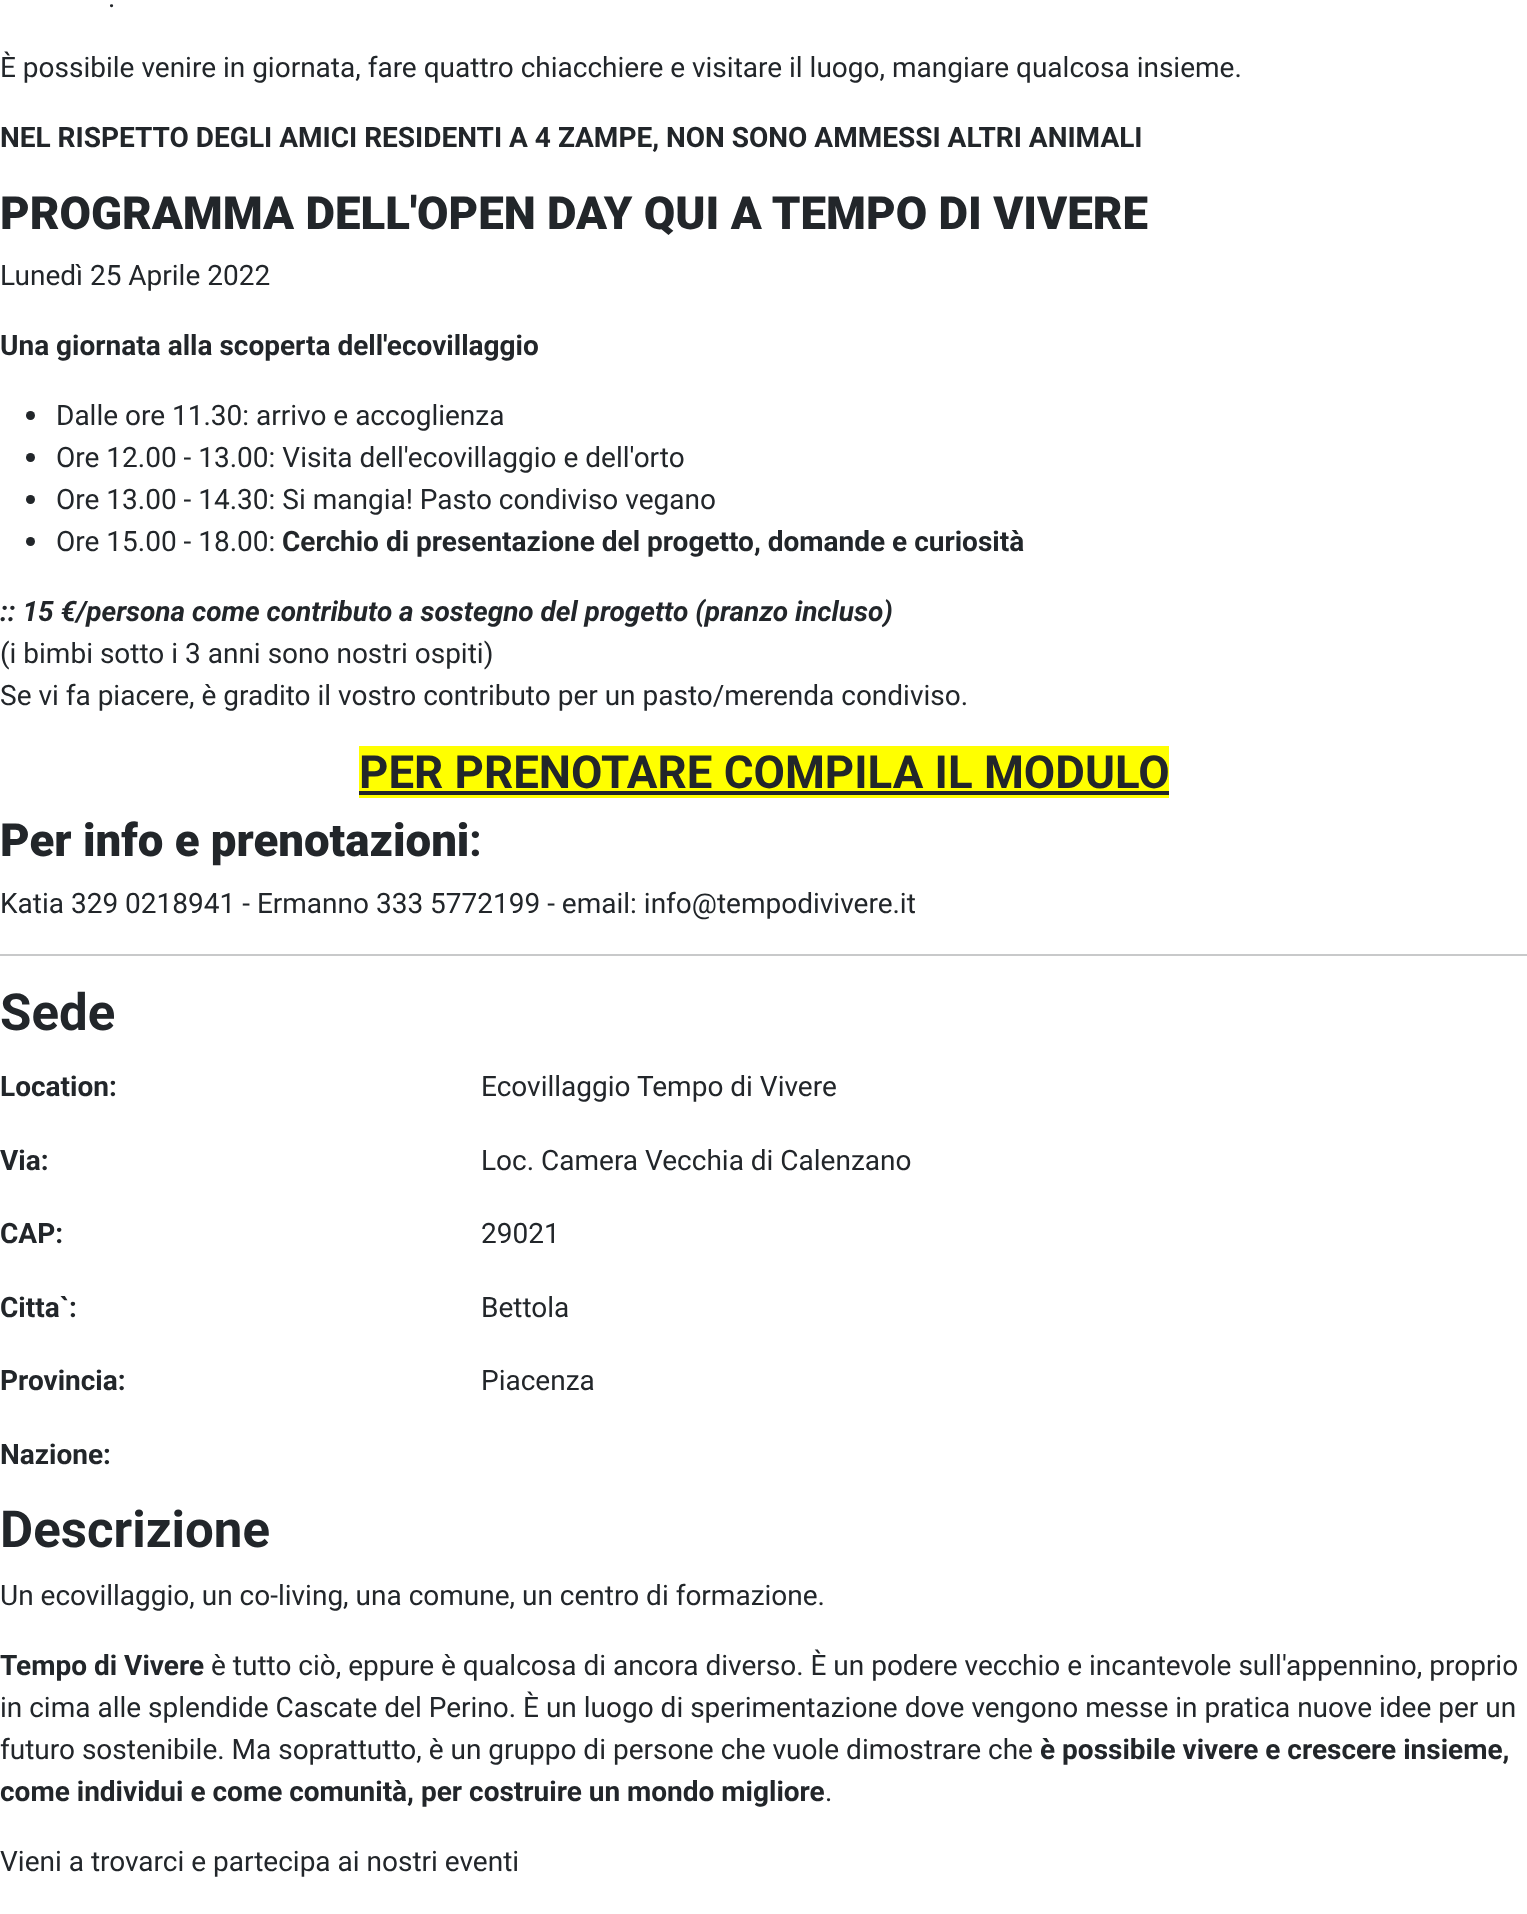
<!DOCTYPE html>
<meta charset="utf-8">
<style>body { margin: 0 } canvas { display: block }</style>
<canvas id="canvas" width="1527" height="1914"></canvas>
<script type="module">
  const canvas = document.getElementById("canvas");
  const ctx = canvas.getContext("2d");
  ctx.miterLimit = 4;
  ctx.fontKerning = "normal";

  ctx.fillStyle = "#ffffff";
  ctx.fillRect(0, 0, 1527, 1914);
  ctx.font = "28px Roboto";
  ctx.fillStyle = "#22262a";
  ctx.fillText(".", 108, 7);
  ctx.fillText("È possibile venire in giornata, fare quattro chiacchiere e visitare il luogo, mangiare qualcosa insieme.", 0, 77);
  ctx.font = "bold 28px Roboto";
  ctx.fillText("NEL RISPETTO DEGLI AMICI RESIDENTI A 4 ZAMPE, NON SONO AMMESSI ALTRI ANIMALI", 0, 147);
  ctx.font = "900 45.6px Roboto";
  ctx.fillText("PROGRAMMA DELL'OPEN DAY QUI A TEMPO DI VIVERE", 0, 229);
  ctx.font = "28px Roboto";
  ctx.fillText("Lunedì 25 Aprile 2022", 0, 285);
  ctx.font = "bold 28px Roboto";
  ctx.fillText("Una giornata alla scoperta dell'ecovillaggio", 0, 355);
  ctx.beginPath();
  ctx.arc(30.5, 415.5, 4.5, 0, Math.PI * 2);
  ctx.fill();
  ctx.font = "28px Roboto";
  ctx.fillText("Dalle ore 11.30: arrivo e accoglienza", 56, 425);
  ctx.beginPath();
  ctx.arc(30.5, 457.5, 4.5, 0, Math.PI * 2);
  ctx.fill();
  ctx.fillText("Ore 12.00 - 13.00: Visita dell'ecovillaggio e dell'orto", 56, 467);
  ctx.beginPath();
  ctx.arc(30.5, 499.5, 4.5, 0, Math.PI * 2);
  ctx.fill();
  ctx.fillText("Ore 13.00 - 14.30: Si mangia! Pasto condiviso vegano", 56, 509);
  ctx.beginPath();
  ctx.arc(30.5, 541.5, 4.5, 0, Math.PI * 2);
  ctx.fill();
  ctx.fillText("Ore 15.00 - 18.00:", 56, 551);
  ctx.font = "bold 28px Roboto";
  ctx.fillText("Cerchio di presentazione del progetto, domande e curiosità", 282, 551);
  ctx.font = "italic bold 28px Roboto";
  ctx.fillText(":: 15 €/persona come contributo a sostegno del progetto (pranzo incluso)", 0, 621);
  ctx.font = "28px Roboto";
  ctx.fillText("(i bimbi sotto i 3 anni sono nostri ospiti)", 0, 663);
  ctx.fillText("Se vi fa piacere, è gradito il vostro contributo per un pasto/merenda condiviso.", 0, 705);
  ctx.fillStyle = "#ffff00";
  ctx.fillRect(359, 746, 810, 52);
  ctx.font = "bold 45.6px Roboto";
  ctx.fillStyle = "#22262a";
  ctx.fillText("PER PRENOTARE COMPILA IL MODULO", 359, 788);
  ctx.fillRect(359, 791, 810, 4);
  ctx.font = "900 45.6px Roboto";
  ctx.fillText("Per info e prenotazioni", 0, 856);
  ctx.font = "bold 45.6px Roboto";
  ctx.fillText(":", 469, 856);
  ctx.font = "28px Roboto";
  ctx.fillText("Katia 329 0218941 - Ermanno 333 5772199 - email: info@tempodivivere.it", 0, 913);
  ctx.fillStyle = "#c8c9ca";
  ctx.fillRect(0, 954, 1527, 2);
  ctx.font = "bold 51px Roboto";
  ctx.fillStyle = "#22262a";
  ctx.fillText("Sede", 0, 1030);
  ctx.font = "bold 28px Roboto";
  ctx.fillText("Location:", 0, 1096);
  ctx.font = "28px Roboto";
  ctx.fillText("Ecovillaggio Tempo di Vivere", 481, 1096);
  ctx.font = "bold 28px Roboto";
  ctx.fillText("Via:", 0, 1170);
  ctx.font = "28px Roboto";
  ctx.fillText("Loc. Camera Vecchia di Calenzano", 481, 1170);
  ctx.font = "bold 28px Roboto";
  ctx.fillText("CAP:", 0, 1243);
  ctx.font = "28px Roboto";
  ctx.fillText("29021", 481, 1243);
  ctx.font = "bold 28px Roboto";
  ctx.fillText("Citta`:", 0, 1317);
  ctx.font = "28px Roboto";
  ctx.fillText("Bettola", 481, 1317);
  ctx.font = "bold 28px Roboto";
  ctx.fillText("Provincia:", 0, 1390);
  ctx.font = "28px Roboto";
  ctx.fillText("Piacenza", 481, 1390);
  ctx.font = "bold 28px Roboto";
  ctx.fillText("Nazione:", 0, 1464);
  ctx.font = "bold 51px Roboto";
  ctx.fillText("Descrizione", 0, 1547);
  ctx.font = "28px Roboto";
  ctx.fillText("Un ecovillaggio, un co-living, una comune, un centro di formazione.", 0, 1605);
  ctx.font = "bold 28px Roboto";
  ctx.fillText("Tempo di Vivere", 0, 1675);
  ctx.font = "28px Roboto";
  ctx.fillText("è tutto ciò, eppure è qualcosa di ancora diverso. È un podere vecchio e incantevole sull'appennino, proprio", 211, 1675);
  ctx.fillText("in cima alle splendide Cascate del Perino. È un luogo di sperimentazione dove vengono messe in pratica nuove idee per un", 0, 1717);
  ctx.fillText("futuro sostenibile. Ma soprattutto, è un gruppo di persone che vuole dimostrare che", 0, 1759);
  ctx.font = "bold 28px Roboto";
  ctx.fillText("è possibile vivere e crescere insieme,", 1040, 1759);
  ctx.fillText("come individui e come comunità, per costruire un mondo migliore", 0, 1801);
  ctx.font = "28px Roboto";
  ctx.fillText(".", 825, 1801);
  ctx.fillText("Vieni a trovarci e partecipa ai nostri eventi", 0, 1871);
</script>
